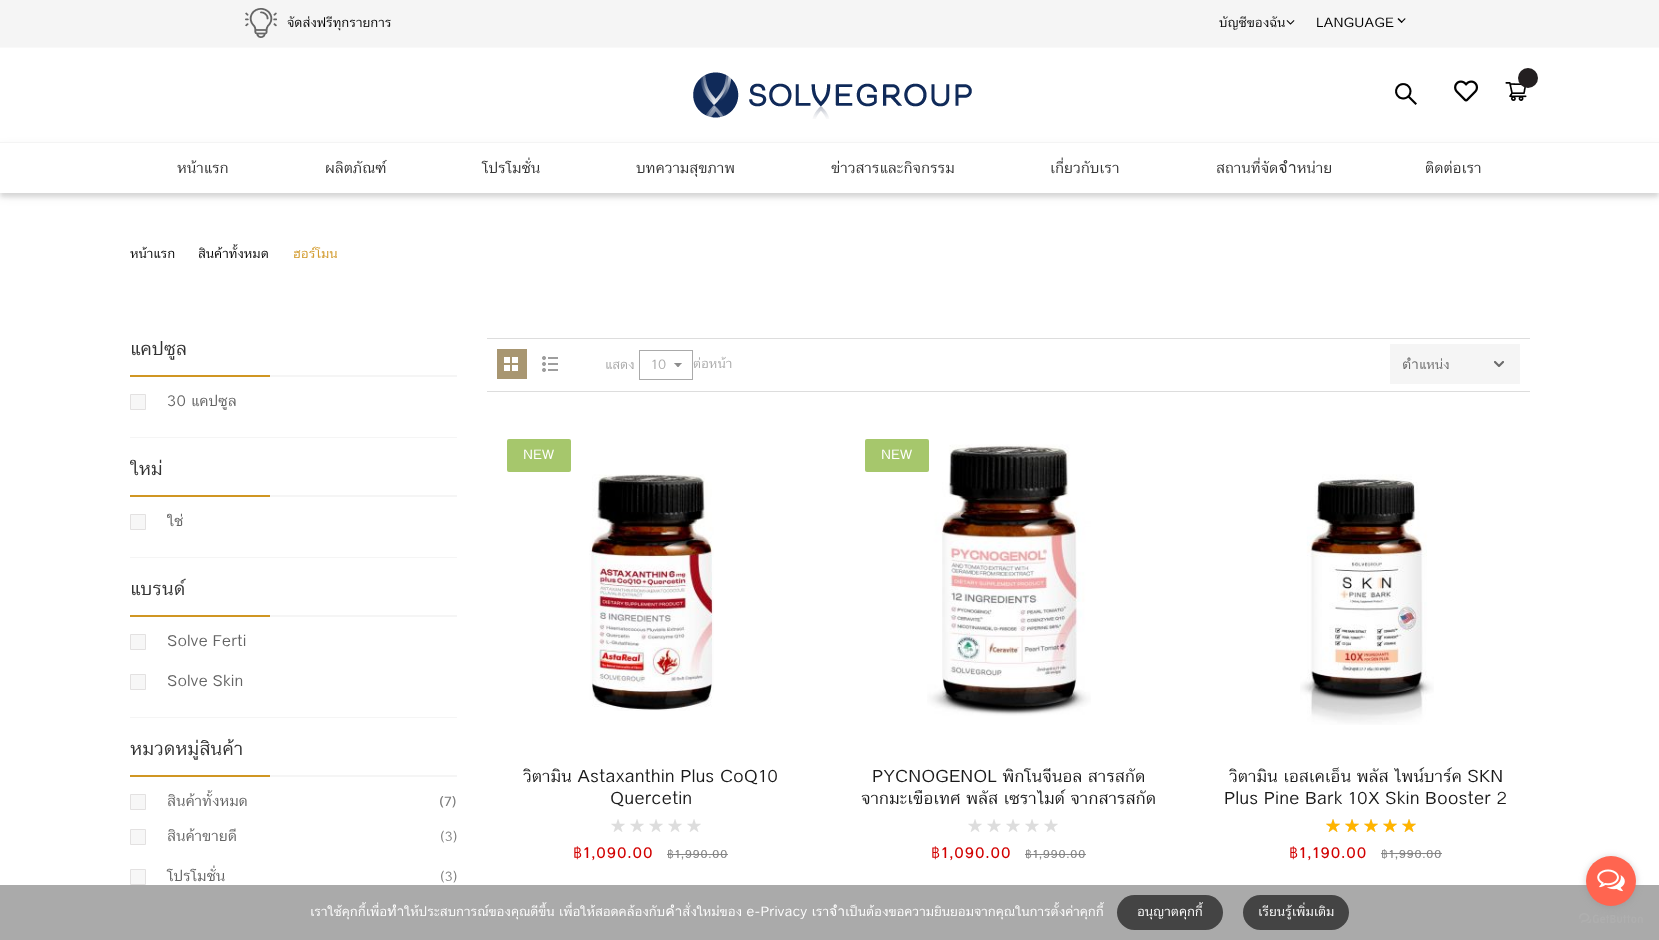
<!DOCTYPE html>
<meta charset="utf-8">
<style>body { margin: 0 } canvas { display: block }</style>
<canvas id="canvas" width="1659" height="940"></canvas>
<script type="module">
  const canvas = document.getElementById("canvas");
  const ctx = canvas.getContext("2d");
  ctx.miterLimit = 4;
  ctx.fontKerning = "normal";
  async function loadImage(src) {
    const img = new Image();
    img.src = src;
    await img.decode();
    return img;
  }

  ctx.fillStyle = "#ffffff";
  ctx.fillRect(0, 0, 1659, 940);
  ctx.fillStyle = "#f5f5f5";
  ctx.fillRect(0, 0, 1659, 47);
  ctx.fillStyle = "#f9f9f9";
  ctx.fillRect(0, 47, 1659, 1);
  ctx.drawImage(await loadImage("img1.png"), 245, 8, 32, 30);
  ctx.font = "14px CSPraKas";
  ctx.fillStyle = "#000000";
  ctx.fillText("จัดส่งฟรีทุกรายการ", 287, 27);
  ctx.fillText("บัญชีของฉัน", 1219, 27);
  ctx.drawImage(await loadImage("img2.png"), 1286, 20, 9, 5);
  ctx.fillText("LANGUAGE", 1316, 27);
  ctx.beginPath();
  ctx.moveTo(1405, 18);
  ctx.lineTo(1405.5, 19);
  ctx.lineTo(1401.5, 23);
  ctx.lineTo(1401, 22);
  ctx.closePath();
  ctx.fill();
  ctx.beginPath();
  ctx.moveTo(1398.5, 18);
  ctx.lineTo(1402.5, 22);
  ctx.lineTo(1401.5, 23);
  ctx.lineTo(1397.5, 19);
  ctx.closePath();
  ctx.fill();
  ctx.drawImage(await loadImage("img3.png"), 693, 72, 279, 47);
  ctx.drawImage(await loadImage("img4.png"), 1395, 83, 22, 22);
  ctx.drawImage(await loadImage("img5.png"), 1454, 80, 25, 22);
  ctx.drawImage(await loadImage("img6.png"), 1505, 82, 22, 19);
  ctx.fillStyle = "#231f20";
  ctx.beginPath();
  ctx.arc(1528, 78, 10, 0, Math.PI * 2);
  ctx.fill();
  ctx.fillStyle = "rgba(0, 0, 0, 0.1)";
  ctx.filter = "blur(2px)";
  ctx.beginPath();
  ctx.rect(0, 146, 1659, 51);
  ctx.fill();
  ctx.filter = "none";
  ctx.fillStyle = "rgba(0, 0, 0, 0.08)";
  ctx.filter = "blur(5px)";
  ctx.beginPath();
  ctx.rect(0, 146, 1659, 51);
  ctx.fill();
  ctx.filter = "none";
  ctx.fillStyle = "#ffffff";
  ctx.fillRect(0, 143, 1659, 50);
  ctx.fillStyle = "#f4f4f4";
  ctx.fillRect(0, 142, 1659, 1);
  ctx.font = "16px CSPraKas";
  ctx.fillStyle = "#333333";
  ctx.fillText("หน้าแรก", 177, 173);
  ctx.fillText("ผลิตภัณฑ์", 325, 173);
  ctx.fillText("โปรโมชั่น", 482, 173);
  ctx.fillText("บทความสุขภาพ", 636, 173);
  ctx.fillText("ข่าวสารและกิจกรรม", 831, 173);
  ctx.fillText("เกี่ยวกับเรา", 1050, 173);
  ctx.fillText("สถานที่จัดจำหน่าย", 1216, 173);
  ctx.fillText("ติดต่อเรา", 1425, 173);
  ctx.font = "14px CSPraKas";
  ctx.fillStyle = "#000000";
  ctx.fillText("หน้าแรก", 130, 258);
  ctx.fillText("สินค้าทั้งหมด", 198, 258);
  ctx.fillStyle = "#d09623";
  ctx.fillText("ฮอร์โมน", 293, 258);
  ctx.fillStyle = "#f5f5f5";
  ctx.fillRect(270, 375, 187, 2);
  ctx.font = "20px CSPraKas";
  ctx.fillStyle = "#333333";
  ctx.fillText("แคปซูล", 130, 355);
  ctx.fillStyle = "#d09623";
  ctx.fillRect(130, 375, 140, 2);
  ctx.fillStyle = "#f5f5f5";
  ctx.fillRect(130, 437, 327, 1);
  ctx.fillStyle = "#f7f7f7";
  ctx.beginPath();
  ctx.rect(130.5, 394.5, 15, 15);
  ctx.fill();
  ctx.strokeStyle = "#e3e1e1";
  ctx.stroke();
  ctx.font = "16px CSPraKas";
  ctx.fillStyle = "#646464";
  ctx.fillText("30 แคปซูล", 167, 406);
  ctx.fillStyle = "#f5f5f5";
  ctx.fillRect(270, 495, 187, 2);
  ctx.font = "20px CSPraKas";
  ctx.fillStyle = "#333333";
  ctx.fillText("ใหม่", 130, 475);
  ctx.fillStyle = "#d09623";
  ctx.fillRect(130, 495, 140, 2);
  ctx.fillStyle = "#f5f5f5";
  ctx.fillRect(130, 557, 327, 1);
  ctx.fillStyle = "#f7f7f7";
  ctx.beginPath();
  ctx.rect(130.5, 514.5, 15, 15);
  ctx.fill();
  ctx.stroke();
  ctx.font = "16px CSPraKas";
  ctx.fillStyle = "#646464";
  ctx.fillText("ใช่", 167, 526);
  ctx.fillStyle = "#f5f5f5";
  ctx.fillRect(270, 615, 187, 2);
  ctx.font = "20px CSPraKas";
  ctx.fillStyle = "#333333";
  ctx.fillText("แบรนด์", 130, 595);
  ctx.fillStyle = "#d09623";
  ctx.fillRect(130, 615, 140, 2);
  ctx.fillStyle = "#f5f5f5";
  ctx.fillRect(130, 717, 327, 1);
  ctx.fillStyle = "#f7f7f7";
  ctx.beginPath();
  ctx.rect(130.5, 634.5, 15, 15);
  ctx.fill();
  ctx.stroke();
  ctx.font = "16px CSPraKas";
  ctx.fillStyle = "#646464";
  ctx.fillText("Solve Ferti", 167, 646);
  ctx.fillStyle = "#f7f7f7";
  ctx.beginPath();
  ctx.rect(130.5, 674.5, 15, 15);
  ctx.fill();
  ctx.stroke();
  ctx.fillStyle = "#646464";
  ctx.fillText("Solve Skin", 167, 686);
  ctx.fillStyle = "#f5f5f5";
  ctx.fillRect(270, 775, 187, 2);
  ctx.font = "20px CSPraKas";
  ctx.fillStyle = "#333333";
  ctx.fillText("หมวดหมู่สินค้า", 130, 755);
  ctx.fillStyle = "#d09623";
  ctx.fillRect(130, 775, 140, 2);
  ctx.fillStyle = "#f7f7f7";
  ctx.beginPath();
  ctx.rect(130.5, 794.5, 15, 15);
  ctx.fill();
  ctx.stroke();
  ctx.font = "16px CSPraKas";
  ctx.fillStyle = "#646464";
  ctx.fillText("สินค้าทั้งหมด", 167, 806);
  ctx.font = "bold 14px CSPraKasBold";
  ctx.fillStyle = "#7d7d7d";
  ctx.fillText("(7)", 439, 806);
  ctx.fillStyle = "#f7f7f7";
  ctx.beginPath();
  ctx.rect(130.5, 829.5, 15, 15);
  ctx.fill();
  ctx.stroke();
  ctx.font = "16px CSPraKas";
  ctx.fillStyle = "#646464";
  ctx.fillText("สินค้าขายดี", 167, 841);
  ctx.font = "14px CSPraKas";
  ctx.fillStyle = "#7d7d7d";
  ctx.fillText("(3)", 440, 841);
  ctx.fillStyle = "#f7f7f7";
  ctx.beginPath();
  ctx.rect(130.5, 869.5, 15, 15);
  ctx.fill();
  ctx.stroke();
  ctx.font = "16px CSPraKas";
  ctx.fillStyle = "#646464";
  ctx.fillText("โปรโมชั่น", 167, 881);
  ctx.font = "14px CSPraKas";
  ctx.fillStyle = "#7d7d7d";
  ctx.fillText("(3)", 440, 881);
  ctx.fillStyle = "#dddddd";
  ctx.fillRect(487, 338, 1043, 1);
  ctx.fillRect(487, 391, 1043, 1);
  ctx.fillStyle = "#a89671";
  ctx.fillRect(497, 349, 30, 30);
  ctx.drawImage(await loadImage("img7.png"), 504, 357, 14, 14);
  ctx.drawImage(await loadImage("img8.png"), 542, 356, 16, 16);
  ctx.fillStyle = "#aaaaaa";
  ctx.fillText("แสดง", 605, 369);
  ctx.fillText("ต่อหน้า", 693, 368);
  ctx.fillStyle = "#ffffff";
  ctx.fillRect(691, 357, 1, 3);
  ctx.drawImage(await loadImage("img9.png"), 674, 363, 8, 4);
  ctx.strokeStyle = "#aaaaaa";
  ctx.strokeRect(639.5, 350.5, 53, 29);
  ctx.fillStyle = "#aaaaaa";
  ctx.fillText("10", 651, 369);
  ctx.fillStyle = "#f5f5f5";
  ctx.fillRect(1390, 344, 130, 40);
  ctx.drawImage(await loadImage("img10.png"), 1494, 361, 10, 6);
  ctx.save();
  ctx.beginPath();
  ctx.rect(1401, 345, 108, 40);
  ctx.clip();
  ctx.fillStyle = "#6b6b6b";
  ctx.fillText("ตำแหน่ง", 1402, 369);
  ctx.restore();
  ctx.fillStyle = "#a6c76c";
  ctx.beginPath();
  ctx.roundRect(507, 439, 64, 33, 2);
  ctx.fill();
  ctx.fillStyle = "#ffffff";
  ctx.fillText("NEW", 523, 459);
  ctx.drawImage(await loadImage("img11.png"), 589, 474, 125, 237);
  ctx.font = "18px CSPraKas";
  ctx.fillStyle = "#1a1a1a";
  ctx.fillText("วิตามิน Astaxanthin Plus CoQ10", 523, 782);
  ctx.fillText("Quercetin", 610, 804);
  ctx.drawImage(await loadImage("img12.png"), 611, 819, 90, 13);
  ctx.letterSpacing = "0.5px";
  ctx.font = "bold 16px CSPraKasBold";
  ctx.fillStyle = "#d20000";
  ctx.fillText("฿1,090.00", 573, 858);
  ctx.font = "bold 12px CSPraKasBold";
  ctx.fillStyle = "#848484";
  ctx.fillText("฿1,990.00", 667, 858);
  ctx.fillRect(667, 854, 61, 1);
  ctx.drawImage(await loadImage("img13.png"), 927, 444, 164, 272);
  ctx.fillStyle = "#a6c76c";
  ctx.beginPath();
  ctx.roundRect(865, 439, 64, 33, 2);
  ctx.fill();
  ctx.letterSpacing = "0px";
  ctx.font = "14px CSPraKas";
  ctx.fillStyle = "#ffffff";
  ctx.fillText("NEW", 881, 459);
  ctx.font = "18px CSPraKas";
  ctx.fillStyle = "#1a1a1a";
  ctx.fillText("PYCNOGENOL พิกโนจีนอล สารสกัด", 872, 782);
  ctx.fillText("จากมะเขือเทศ พลัส เซราไมด์ จากสารสกัด", 861, 804);
  ctx.drawImage(await loadImage("img12.png"), 968, 819, 90, 13);
  ctx.letterSpacing = "0.5px";
  ctx.font = "bold 16px CSPraKasBold";
  ctx.fillStyle = "#d20000";
  ctx.fillText("฿1,090.00", 931, 858);
  ctx.font = "bold 12px CSPraKasBold";
  ctx.fillStyle = "#848484";
  ctx.fillText("฿1,990.00", 1025, 858);
  ctx.fillRect(1025, 854, 61, 1);
  ctx.drawImage(await loadImage("img14.png"), 1300, 474, 134, 251);
  ctx.letterSpacing = "0px";
  ctx.font = "18px CSPraKas";
  ctx.fillStyle = "#1a1a1a";
  ctx.fillText("วิตามิน เอสเคเอ็น พลัส ไพน์บาร์ค SKN", 1229, 782);
  ctx.fillText("Plus Pine Bark 10X Skin Booster 2", 1224, 804);
  ctx.drawImage(await loadImage("img12.png"), 1326, 819, 90, 13);
  ctx.drawImage(await loadImage("img15.png"), 1326, 819, 90, 13);
  ctx.letterSpacing = "0.5px";
  ctx.font = "bold 16px CSPraKasBold";
  ctx.fillStyle = "#d20000";
  ctx.fillText("฿1,190.00", 1289, 858);
  ctx.font = "bold 12px CSPraKasBold";
  ctx.fillStyle = "#848484";
  ctx.fillText("฿1,990.00", 1381, 858);
  ctx.fillRect(1381, 853, 61, 1);
  ctx.fillStyle = "#aaaaaa";
  ctx.fillRect(0, 885, 1659, 55);
  ctx.drawImage(await loadImage("img17.png"), 1579, 913, 64, 10);
  ctx.fillStyle = "rgba(136, 136, 136, 0.4)";
  ctx.filter = "blur(3.5px)";
  ctx.beginPath();
  ctx.roundRect(1586, 857, 50, 50, 25);
  ctx.fill();
  ctx.filter = "none";
  ctx.fillStyle = "#ff6550";
  ctx.beginPath();
  ctx.arc(1611, 881, 25, 0, Math.PI * 2);
  ctx.fill();
  ctx.drawImage(await loadImage("img16.png"), 1597, 869, 28, 23);
  ctx.letterSpacing = "0px";
  ctx.font = "14px CSPraKas";
  ctx.fillStyle = "#ffffff";
  ctx.fillText("เราใช้คุกกี้เพื่อทำให้ประสบการณ์ของคุณดีขึ้น เพื่อให้สอดคล้องกับคำสั่งใหม่ของ e-Privacy เราจำเป็นต้องขอความยินยอมจากคุณในการตั้งค่าคุกกี้", 310, 916);
  ctx.fillStyle = "#444444";
  ctx.beginPath();
  ctx.roundRect(1117, 895, 106, 35, 17.5);
  ctx.fill();
  ctx.fillStyle = "#ffffff";
  ctx.fillText("อนุญาตคุกกี้", 1137, 916);
  ctx.fillStyle = "#444444";
  ctx.beginPath();
  ctx.roundRect(1243, 895, 106, 35, 17.5);
  ctx.fill();
  ctx.fillStyle = "#ffffff";
  ctx.fillText("เรียนรู้เพิ่มเติม", 1258, 916);
</script>
